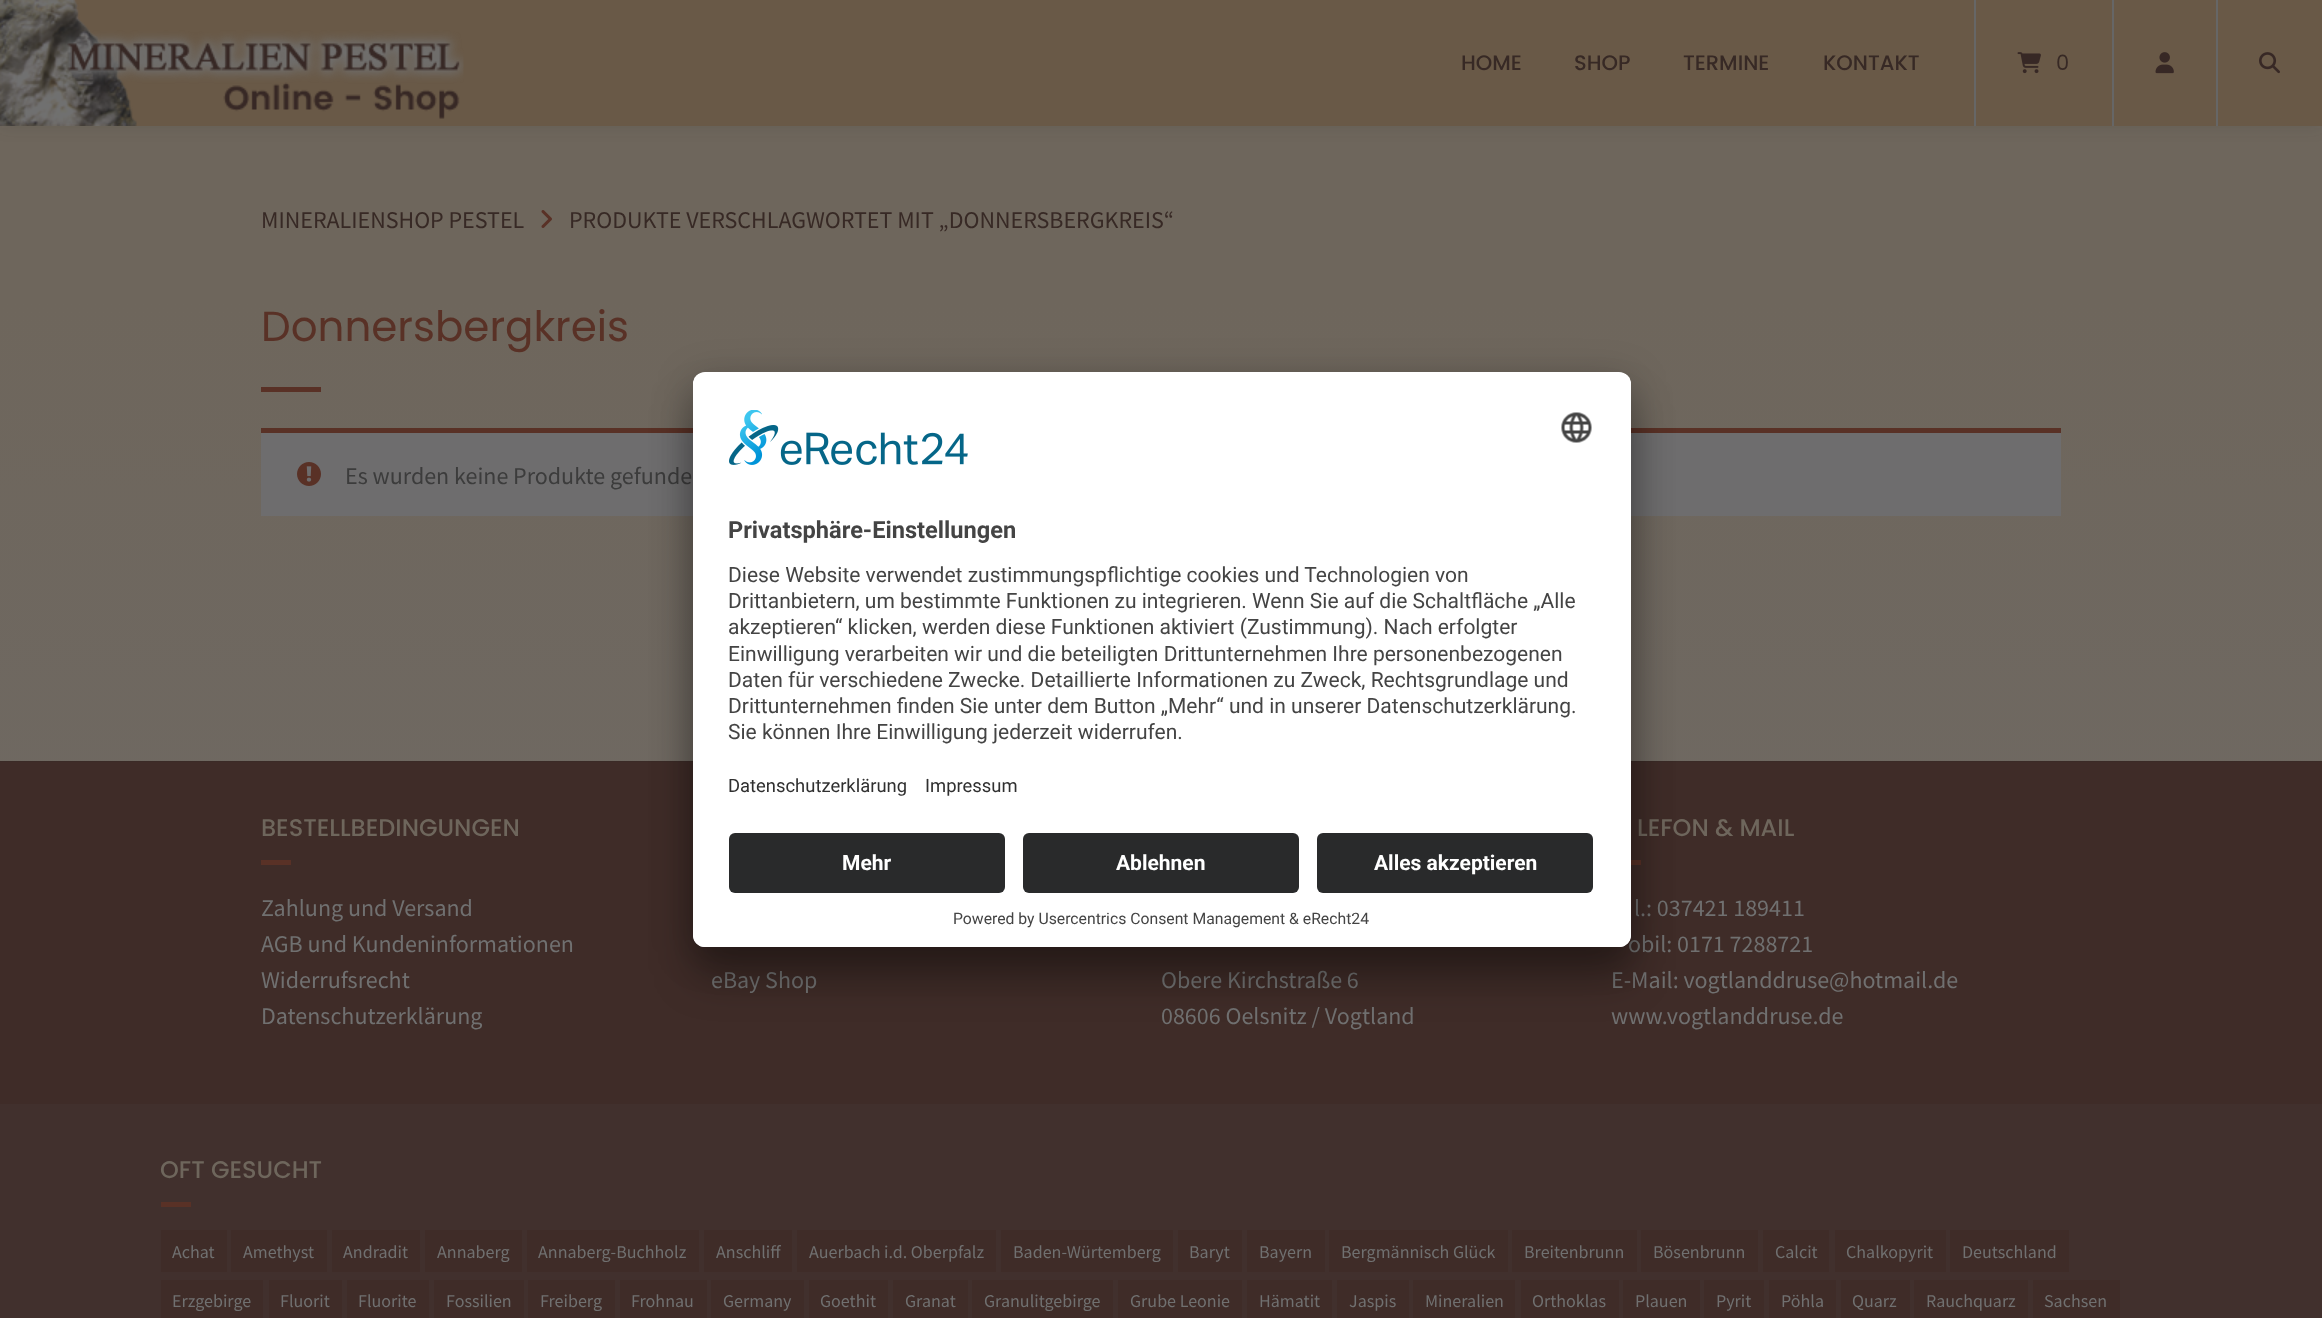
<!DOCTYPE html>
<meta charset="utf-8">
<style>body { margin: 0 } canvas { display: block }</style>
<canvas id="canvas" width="2322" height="1318"></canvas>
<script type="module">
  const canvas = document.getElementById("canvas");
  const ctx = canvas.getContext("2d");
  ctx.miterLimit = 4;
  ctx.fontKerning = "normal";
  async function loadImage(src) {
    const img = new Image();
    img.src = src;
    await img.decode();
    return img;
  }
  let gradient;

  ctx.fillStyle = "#ffffff";
  ctx.fillRect(0, 0, 2322, 1318);
  gradient = ctx.createLinearGradient(1161, 0, 1161, 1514);
  gradient.addColorStop(0.2, "#6e665c");
  gradient.addColorStop(1, "#706c69");
  ctx.fillStyle = gradient;
  ctx.fillRect(0, 126, 2322, 635);
  ctx.fillStyle = "rgba(36, 36, 36, 0.1)";
  ctx.filter = "blur(7.5px)";
  ctx.beginPath();
  ctx.rect(0, 2, 2322, 126);
  ctx.fill();
  ctx.filter = "none";
  ctx.fillStyle = "#695947";
  ctx.fillRect(0, 0, 2322, 126);
  ctx.drawImage(await loadImage("img1.png"), 0, 0, 464, 126);
  ctx.font = "500 21px Poppins";
  ctx.fillStyle = "#372925";
  ctx.fillText("HOME", 1461, 70);
  ctx.fillText("SHOP", 1574, 70);
  ctx.fillText("TERMINE", 1683, 70);
  ctx.fillText("KONTAKT", 1823, 70);
  ctx.fillStyle = "#666666";
  ctx.fillRect(2112, 0, 2, 126);
  ctx.fillRect(1974, 0, 2, 126);
  ctx.drawImage(await loadImage("img2.png"), 2017, 52, 24, 22);
  ctx.font = "21px Poppins";
  ctx.fillStyle = "#372925";
  ctx.fillText("0", 2056, 70);
  ctx.fillStyle = "#666666";
  ctx.fillRect(2216, 0, 2, 126);
  ctx.drawImage(await loadImage("img3.png"), 2155, 52, 19, 22);
  ctx.drawImage(await loadImage("img4.png"), 2259, 52, 21, 22);
  ctx.font = "24px Source Sans Pro";
  ctx.fillStyle = "#372925";
  ctx.fillText("MINERALIENSHOP PESTEL", 261, 228);
  ctx.drawImage(await loadImage("img5.png"), 541, 210, 11, 18);
  ctx.fillText("PRODUKTE VERSCHLAGWORTET MIT „DONNERSBERGKREIS“", 569, 228);
  ctx.font = "42px Poppins";
  ctx.fillStyle = "#593126";
  ctx.fillText("Donnersbergkreis", 261, 341);
  ctx.fillRect(261, 387, 60, 5);
  ctx.fillStyle = "#6e6d6e";
  ctx.fillRect(261, 433, 1800, 83);
  ctx.fillStyle = "#593126";
  ctx.fillRect(261, 428, 1800, 5);
  ctx.drawImage(await loadImage("img6.png"), 297, 462, 24, 24);
  ctx.font = "24px Source Sans Pro";
  ctx.fillStyle = "#3c3c3c";
  ctx.fillText("Es wurden keine Produkte gefunde", 345, 484);
  ctx.fillStyle = "#3b2b27";
  ctx.fillRect(0, 761, 2322, 1);
  ctx.fillStyle = "#3f2c28";
  ctx.fillRect(0, 762, 2322, 342);
  ctx.font = "500 24px Poppins";
  ctx.fillStyle = "#6e665c";
  ctx.fillText("BESTELLBEDINGUNGEN", 261, 836);
  ctx.fillStyle = "#593126";
  ctx.fillRect(261, 860, 30, 5);
  ctx.font = "24px Source Sans Pro";
  ctx.fillStyle = "#707070";
  ctx.fillText("Zahlung und Versand", 261, 916);
  ctx.fillText("AGB und Kundeninformationen", 261, 952);
  ctx.fillText("Widerrufsrecht", 261, 988);
  ctx.fillText("Datenschutzerklärung", 261, 1024);
  ctx.fillText("eBay Shop", 711, 988);
  ctx.fillText("Obere Kirchstraße 6", 1161, 988);
  ctx.fillText("08606 Oelsnitz / Vogtland", 1161, 1024);
  ctx.font = "500 24px Poppins";
  ctx.fillStyle = "#6e665c";
  ctx.fillText("LEFON & MAIL", 1637, 836);
  ctx.fillStyle = "#593126";
  ctx.fillRect(1631, 860, 10, 5);
  ctx.font = "24px Source Sans Pro";
  ctx.fillStyle = "#707070";
  ctx.fillText("l.: 037421 189411", 1634, 916);
  ctx.fillText("obil: 0171 7288721", 1628, 952);
  ctx.fillText("E-Mail: vogtlanddruse@hotmail.de", 1611, 988);
  ctx.fillText("www.vogtlanddruse.de", 1611, 1024);
  ctx.fillStyle = "#41302d";
  ctx.fillRect(0, 1104, 2322, 214);
  ctx.font = "500 24px Poppins";
  ctx.fillStyle = "#6e665c";
  ctx.fillText("OFT GESUCHT", 160, 1178);
  ctx.fillStyle = "#593126";
  ctx.fillRect(161, 1202, 30, 5);
  ctx.fillStyle = "#3f2c28";
  ctx.fillRect(161, 1230, 66, 42);
  ctx.font = "18px Source Sans Pro";
  ctx.fillStyle = "#707070";
  ctx.fillText("Achat", 172, 1258);
  ctx.fillStyle = "#3f2c28";
  ctx.fillRect(231, 1230, 96, 42);
  ctx.fillStyle = "#707070";
  ctx.fillText("Amethyst", 243, 1258);
  ctx.fillStyle = "#3f2c28";
  ctx.fillRect(332, 1230, 88, 42);
  ctx.fillStyle = "#707070";
  ctx.fillText("Andradit", 343, 1258);
  ctx.fillStyle = "#3f2c28";
  ctx.fillRect(425, 1230, 97, 42);
  ctx.fillStyle = "#707070";
  ctx.fillText("Annaberg", 437, 1258);
  ctx.fillStyle = "#3f2c28";
  ctx.fillRect(527, 1230, 172, 42);
  ctx.fillStyle = "#707070";
  ctx.fillText("Annaberg-Buchholz", 538, 1258);
  ctx.fillStyle = "#3f2c28";
  ctx.fillRect(704, 1230, 88, 42);
  ctx.fillStyle = "#707070";
  ctx.fillText("Anschliff", 716, 1258);
  ctx.fillStyle = "#3f2c28";
  ctx.fillRect(797, 1230, 199, 42);
  ctx.fillStyle = "#707070";
  ctx.fillText("Auerbach i.d. Oberpfalz", 809, 1258);
  ctx.fillStyle = "#3f2c28";
  ctx.fillRect(1001, 1230, 172, 42);
  ctx.fillStyle = "#707070";
  ctx.fillText("Baden-Würtemberg", 1013, 1258);
  ctx.fillStyle = "#3f2c28";
  ctx.fillRect(1178, 1230, 64, 42);
  ctx.fillStyle = "#707070";
  ctx.fillText("Baryt", 1189, 1258);
  ctx.fillStyle = "#3f2c28";
  ctx.fillRect(1247, 1230, 78, 42);
  ctx.fillStyle = "#707070";
  ctx.fillText("Bayern", 1259, 1258);
  ctx.fillStyle = "#3f2c28";
  ctx.fillRect(1329, 1230, 179, 42);
  ctx.fillStyle = "#707070";
  ctx.fillText("Bergmännisch Glück", 1341, 1258);
  ctx.fillStyle = "#3f2c28";
  ctx.fillRect(1512, 1230, 125, 42);
  ctx.fillStyle = "#707070";
  ctx.fillText("Breitenbrunn", 1524, 1258);
  ctx.fillStyle = "#3f2c28";
  ctx.fillRect(1641, 1230, 117, 42);
  ctx.fillStyle = "#707070";
  ctx.fillText("Bösenbrunn", 1653, 1258);
  ctx.fillStyle = "#3f2c28";
  ctx.fillRect(1763, 1230, 66, 42);
  ctx.fillStyle = "#707070";
  ctx.fillText("Calcit", 1775, 1258);
  ctx.fillStyle = "#3f2c28";
  ctx.fillRect(1835, 1230, 111, 42);
  ctx.fillStyle = "#707070";
  ctx.fillText("Chalkopyrit", 1846, 1258);
  ctx.fillStyle = "#3f2c28";
  ctx.fillRect(1950, 1230, 119, 42);
  ctx.fillStyle = "#707070";
  ctx.fillText("Deutschland", 1962, 1258);
  ctx.fillStyle = "#3f2c28";
  ctx.fillRect(161, 1280, 102, 38);
  ctx.fillStyle = "#707070";
  ctx.fillText("Erzgebirge", 172, 1307);
  ctx.fillStyle = "#3f2c28";
  ctx.fillRect(269, 1280, 73, 38);
  ctx.fillStyle = "#707070";
  ctx.fillText("Fluorit", 280, 1307);
  ctx.fillStyle = "#3f2c28";
  ctx.fillRect(347, 1280, 82, 38);
  ctx.fillStyle = "#707070";
  ctx.fillText("Fluorite", 358, 1307);
  ctx.fillStyle = "#3f2c28";
  ctx.fillRect(434, 1280, 90, 38);
  ctx.fillStyle = "#707070";
  ctx.fillText("Fossilien", 446, 1307);
  ctx.fillStyle = "#3f2c28";
  ctx.fillRect(528, 1280, 87, 38);
  ctx.fillStyle = "#707070";
  ctx.fillText("Freiberg", 540, 1307);
  ctx.fillStyle = "#3f2c28";
  ctx.fillRect(620, 1280, 87, 38);
  ctx.fillStyle = "#707070";
  ctx.fillText("Frohnau", 631, 1307);
  ctx.fillStyle = "#3f2c28";
  ctx.fillRect(711, 1280, 93, 38);
  ctx.fillStyle = "#707070";
  ctx.fillText("Germany", 723, 1307);
  ctx.fillStyle = "#3f2c28";
  ctx.fillRect(809, 1280, 79, 38);
  ctx.fillStyle = "#707070";
  ctx.fillText("Goethit", 820, 1307);
  ctx.fillStyle = "#3f2c28";
  ctx.fillRect(893, 1280, 75, 38);
  ctx.fillStyle = "#707070";
  ctx.fillText("Granat", 905, 1307);
  ctx.fillStyle = "#3f2c28";
  ctx.fillRect(972, 1280, 141, 38);
  ctx.fillStyle = "#707070";
  ctx.fillText("Granulitgebirge", 984, 1307);
  ctx.fillStyle = "#3f2c28";
  ctx.fillRect(1118, 1280, 124, 38);
  ctx.fillStyle = "#707070";
  ctx.fillText("Grube Leonie", 1130, 1307);
  ctx.fillStyle = "#3f2c28";
  ctx.fillRect(1247, 1280, 85, 38);
  ctx.fillStyle = "#707070";
  ctx.fillText("Hämatit", 1259, 1307);
  ctx.fillStyle = "#3f2c28";
  ctx.fillRect(1337, 1280, 72, 38);
  ctx.fillStyle = "#707070";
  ctx.fillText("Jaspis", 1349, 1307);
  ctx.fillStyle = "#3f2c28";
  ctx.fillRect(1413, 1280, 102, 38);
  ctx.fillStyle = "#707070";
  ctx.fillText("Mineralien", 1425, 1307);
  ctx.fillStyle = "#3f2c28";
  ctx.fillRect(1521, 1280, 98, 38);
  ctx.fillStyle = "#707070";
  ctx.fillText("Orthoklas", 1532, 1307);
  ctx.fillStyle = "#3f2c28";
  ctx.fillRect(1623, 1280, 77, 38);
  ctx.fillStyle = "#707070";
  ctx.fillText("Plauen", 1635, 1307);
  ctx.fillStyle = "#3f2c28";
  ctx.fillRect(1704, 1280, 60, 38);
  ctx.fillStyle = "#707070";
  ctx.fillText("Pyrit", 1716, 1307);
  ctx.fillStyle = "#3f2c28";
  ctx.fillRect(1769, 1280, 67, 38);
  ctx.fillStyle = "#707070";
  ctx.fillText("Pöhla", 1781, 1307);
  ctx.fillStyle = "#3f2c28";
  ctx.fillRect(1841, 1280, 69, 38);
  ctx.fillStyle = "#707070";
  ctx.fillText("Quarz", 1852, 1307);
  ctx.fillStyle = "#3f2c28";
  ctx.fillRect(1914, 1280, 114, 38);
  ctx.fillStyle = "#707070";
  ctx.fillText("Rauchquarz", 1926, 1307);
  ctx.fillStyle = "#3f2c28";
  ctx.fillRect(2033, 1280, 87, 38);
  ctx.fillStyle = "#707070";
  ctx.fillText("Sachsen", 2044, 1307);
  ctx.fillStyle = "rgba(0, 0, 0, 0.3)";
  ctx.filter = "blur(21px)";
  ctx.beginPath();
  ctx.roundRect(693, 402, 938, 575, 12);
  ctx.fill();
  ctx.filter = "none";
  ctx.fillStyle = "rgba(0, 0, 0, 0.22)";
  ctx.filter = "blur(19.5px)";
  ctx.beginPath();
  ctx.roundRect(693, 380, 938, 574, 12);
  ctx.fill();
  ctx.filter = "none";
  ctx.fillStyle = "#ffffff";
  ctx.beginPath();
  ctx.roundRect(693, 372, 938, 575, 12);
  ctx.fill();
  ctx.save();
  ctx.beginPath();
  ctx.roundRect(693, 372, 938, 575, 12);
  ctx.clip();
  ctx.beginPath();
  ctx.roundRect(693, 372, 938, 449, [12, 12, 0, 0]);
  ctx.clip();
  ctx.fillRect(693, 374, 938, 447);
  ctx.restore();
  ctx.drawImage(await loadImage("img7.png"), 729, 410, 239, 55);
  ctx.drawImage(await loadImage("img8.png"), 1561, 412, 31, 31);
  ctx.font = "bold 23.6px Roboto";
  ctx.fillStyle = "#444444";
  ctx.fillText("Privatsphäre-Einstellungen", 728, 538);
  ctx.font = "21px Roboto";
  ctx.fillText("Diese Website verwendet zustimmungspflichtige cookies und Technologien von", 728, 582);
  ctx.fillText("Drittanbietern, um bestimmte Funktionen zu integrieren. Wenn Sie auf die Schaltfläche „Alle", 728, 608);
  ctx.fillText("akzeptieren“ klicken, werden diese Funktionen aktiviert (Zustimmung). Nach erfolgter", 728, 634);
  ctx.fillText("Einwilligung verarbeiten wir und die beteiligten Drittunternehmen Ihre personenbezogenen", 728, 661);
  ctx.fillText("Daten für verschiedene Zwecke. Detaillierte Informationen zu Zweck, Rechtsgrundlage und", 728, 687);
  ctx.fillText("Drittunternehmen finden Sie unter dem Button „Mehr“ und in unserer Datenschutzerklärung.", 728, 713);
  ctx.fillText("Sie können Ihre Einwilligung jederzeit widerrufen.", 728, 739);
  ctx.font = "18.4px Roboto";
  ctx.fillStyle = "#303030";
  ctx.fillText("Datenschutzerklärung", 728, 792);
  ctx.fillText("Impressum", 925, 792);
  ctx.fillStyle = "#ffffff";
  ctx.beginPath();
  ctx.roundRect(693, 821, 938, 126, [0, 0, 12, 12]);
  ctx.fill();
  ctx.fillStyle = "#292a2b";
  ctx.beginPath();
  ctx.roundRect(729, 833, 276, 60, 6);
  ctx.fill();
  ctx.font = "bold 21px Roboto";
  ctx.fillStyle = "#ffffff";
  ctx.fillText("Mehr", 842, 870);
  ctx.fillStyle = "#292a2b";
  ctx.beginPath();
  ctx.roundRect(1023, 833, 276, 60, 6);
  ctx.fill();
  ctx.fillStyle = "#ffffff";
  ctx.fillText("Ablehnen", 1116, 870);
  ctx.fillStyle = "#292a2b";
  ctx.beginPath();
  ctx.roundRect(1317, 833, 276, 60, 6);
  ctx.fill();
  ctx.fillStyle = "#ffffff";
  ctx.fillText("Alles akzeptieren", 1374, 870);
  ctx.font = "15.75px Roboto";
  ctx.fillStyle = "#444444";
  ctx.fillText("Powered by Usercentrics Consent Management & eRecht24", 953, 924);
</script>
